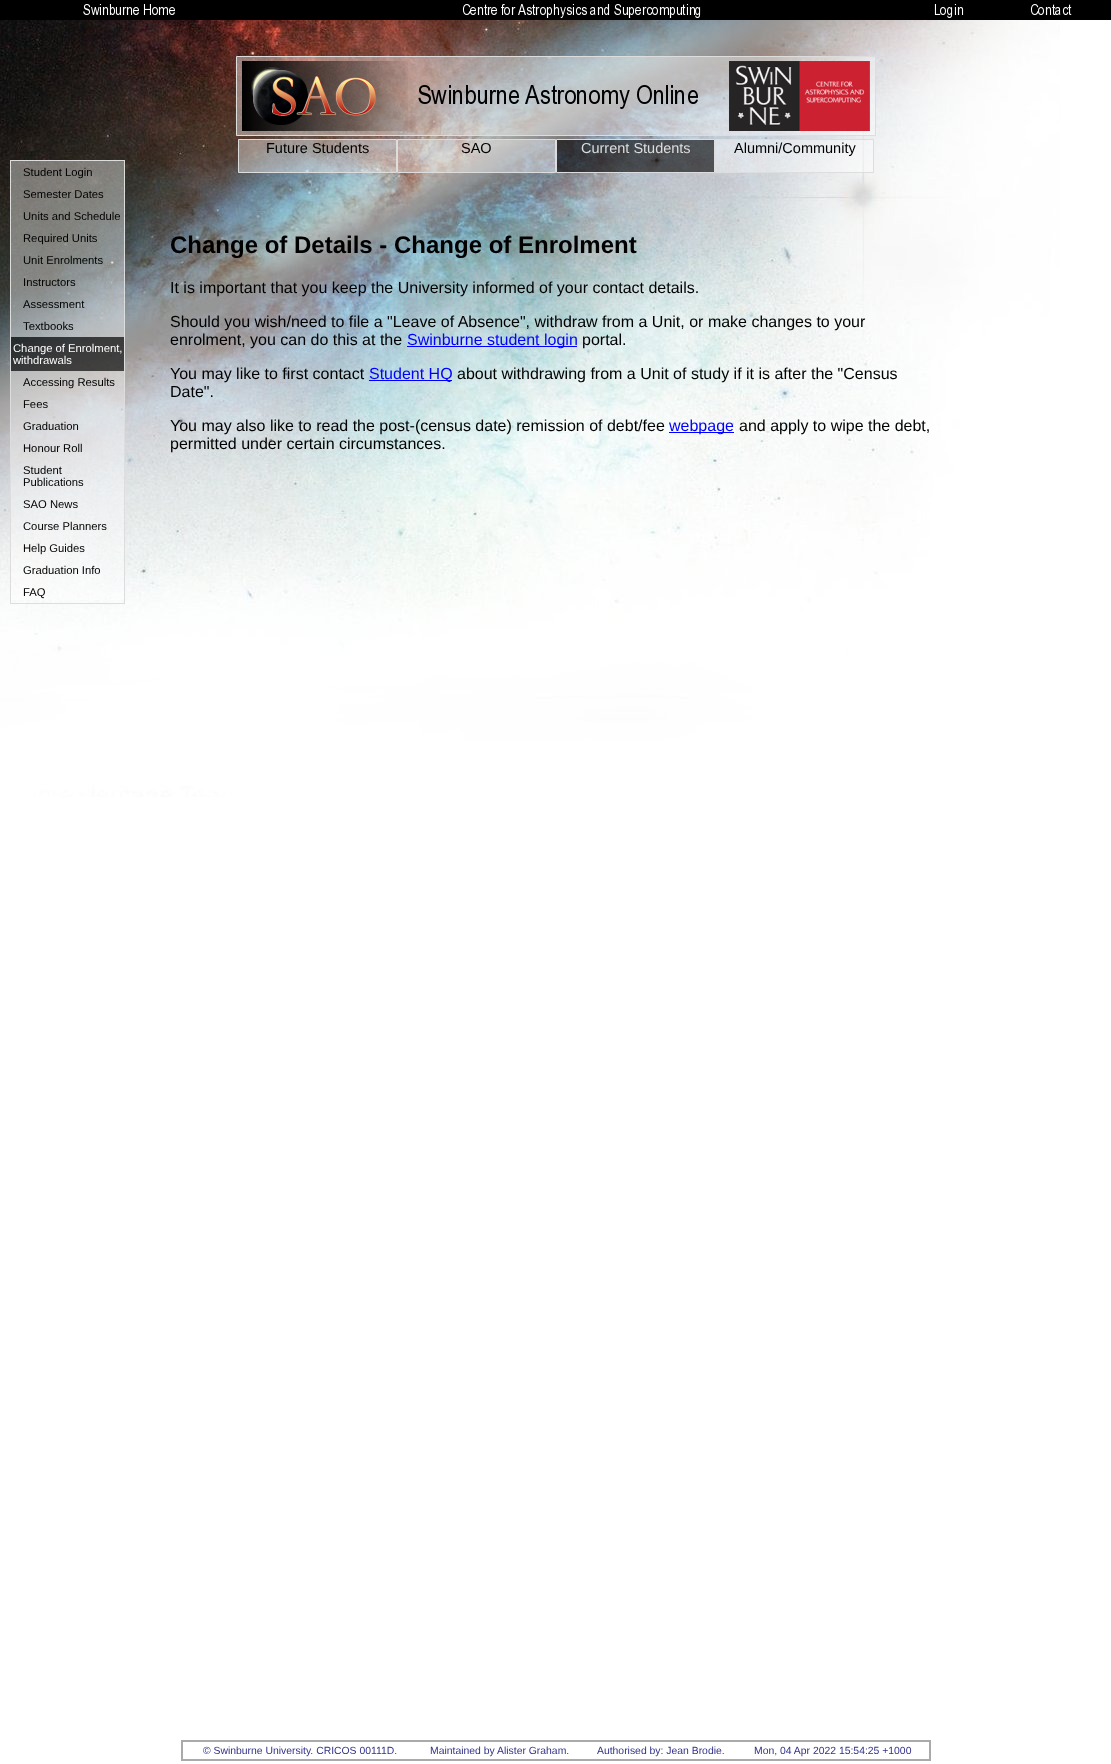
<!DOCTYPE html>
<meta charset="utf-8">
<style>body { margin: 0 } canvas { display: block }</style>
<canvas id="canvas" width="1111" height="1764"></canvas>
<script type="module">
  const canvas = document.getElementById("canvas");
  const ctx = canvas.getContext("2d");
  ctx.miterLimit = 4;
  ctx.fontKerning = "normal";
  async function loadImage(src) {
    const img = new Image();
    img.src = src;
    await img.decode();
    return img;
  }

  ctx.fillStyle = "#ffffff";
  ctx.fillRect(0, 0, 1111, 1764);
  ctx.drawImage(await loadImage("img1.png"), 0, 20, 1060, 777);
  ctx.fillStyle = "#000000";
  ctx.fillRect(0, 0, 1111, 20);
  ctx.drawImage(await loadImage("img2.png"), 83, 4, 92, 11);
  ctx.drawImage(await loadImage("img3.png"), 462, 4, 239, 14);
  ctx.drawImage(await loadImage("img4.png"), 934, 4, 30, 14);
  ctx.drawImage(await loadImage("img5.png"), 1030, 4, 42, 11);
  ctx.strokeStyle = "#dddddd";
  ctx.strokeRect(10.5, 160.5, 114, 443);
  ctx.fillStyle = "rgba(255, 255, 255, 0.4)";
  ctx.fillRect(11, 161, 113, 22);
  ctx.font = "11.25px Liberation Sans";
  ctx.fillStyle = "#000000";
  ctx.fillText("Student Login", 23, 176);
  ctx.fillStyle = "rgba(255, 255, 255, 0.4)";
  ctx.fillRect(11, 183, 113, 22);
  ctx.fillStyle = "#000000";
  ctx.fillText("Semester Dates", 23, 198);
  ctx.fillStyle = "rgba(255, 255, 255, 0.4)";
  ctx.fillRect(11, 205, 113, 22);
  ctx.fillStyle = "#000000";
  ctx.fillText("Units and Schedule", 23, 220);
  ctx.fillStyle = "rgba(255, 255, 255, 0.4)";
  ctx.fillRect(11, 227, 113, 22);
  ctx.fillStyle = "#000000";
  ctx.fillText("Required Units", 23, 242);
  ctx.fillStyle = "rgba(255, 255, 255, 0.4)";
  ctx.fillRect(11, 249, 113, 22);
  ctx.fillStyle = "#000000";
  ctx.fillText("Unit Enrolments", 23, 264);
  ctx.fillStyle = "rgba(255, 255, 255, 0.4)";
  ctx.fillRect(11, 271, 113, 22);
  ctx.fillStyle = "#000000";
  ctx.fillText("Instructors", 23, 286);
  ctx.fillStyle = "rgba(255, 255, 255, 0.4)";
  ctx.fillRect(11, 293, 113, 22);
  ctx.fillStyle = "#000000";
  ctx.fillText("Assessment", 23, 308);
  ctx.fillStyle = "rgba(255, 255, 255, 0.4)";
  ctx.fillRect(11, 315, 113, 22);
  ctx.fillStyle = "#000000";
  ctx.fillText("Textbooks", 23, 330);
  ctx.fillStyle = "rgba(0, 0, 0, 0.6)";
  ctx.fillRect(11, 337, 113, 34);
  ctx.fillStyle = "#ffffff";
  ctx.fillText("Change of Enrolment,", 13, 352);
  ctx.fillText("withdrawals", 13, 364);
  ctx.fillStyle = "rgba(255, 255, 255, 0.4)";
  ctx.fillRect(11, 371, 113, 22);
  ctx.fillStyle = "#000000";
  ctx.fillText("Accessing Results", 23, 386);
  ctx.fillStyle = "rgba(255, 255, 255, 0.4)";
  ctx.fillRect(11, 393, 113, 22);
  ctx.fillStyle = "#000000";
  ctx.fillText("Fees", 23, 408);
  ctx.fillStyle = "rgba(255, 255, 255, 0.4)";
  ctx.fillRect(11, 415, 113, 22);
  ctx.fillStyle = "#000000";
  ctx.fillText("Graduation", 23, 430);
  ctx.fillStyle = "rgba(255, 255, 255, 0.4)";
  ctx.fillRect(11, 437, 113, 22);
  ctx.fillStyle = "#000000";
  ctx.fillText("Honour Roll", 23, 452);
  ctx.fillStyle = "rgba(255, 255, 255, 0.4)";
  ctx.fillRect(11, 459, 113, 34);
  ctx.fillStyle = "#000000";
  ctx.fillText("Student", 23, 474);
  ctx.fillText("Publications", 23, 486);
  ctx.fillStyle = "rgba(255, 255, 255, 0.4)";
  ctx.fillRect(11, 493, 113, 22);
  ctx.fillStyle = "#000000";
  ctx.fillText("SAO News", 23, 508);
  ctx.fillStyle = "rgba(255, 255, 255, 0.4)";
  ctx.fillRect(11, 515, 113, 22);
  ctx.fillStyle = "#000000";
  ctx.fillText("Course Planners", 23, 530);
  ctx.fillStyle = "rgba(255, 255, 255, 0.4)";
  ctx.fillRect(11, 537, 113, 22);
  ctx.fillStyle = "#000000";
  ctx.fillText("Help Guides", 23, 552);
  ctx.fillStyle = "rgba(255, 255, 255, 0.4)";
  ctx.fillRect(11, 559, 113, 22);
  ctx.fillStyle = "#000000";
  ctx.fillText("Graduation Info", 23, 574);
  ctx.fillStyle = "rgba(255, 255, 255, 0.4)";
  ctx.fillRect(11, 581, 113, 19);
  ctx.fillStyle = "#000000";
  ctx.fillText("FAQ", 23, 596);
  ctx.fillStyle = "rgba(255, 255, 255, 0.4)";
  ctx.beginPath();
  ctx.rect(236.5, 56.5, 639, 79);
  ctx.fill();
  ctx.stroke();
  ctx.drawImage(await loadImage("img6.png"), 242, 61, 166, 70);
  ctx.drawImage(await loadImage("img7.png"), 418, 85, 280, 24);
  ctx.drawImage(await loadImage("img8.png"), 729, 61, 141, 70);
  ctx.beginPath();
  ctx.rect(238.5, 139.5, 158, 33);
  ctx.fill();
  ctx.stroke();
  ctx.font = "14.5px Liberation Sans";
  ctx.fillStyle = "#000000";
  ctx.fillText("Future Students", 266, 153);
  ctx.fillStyle = "rgba(255, 255, 255, 0.4)";
  ctx.beginPath();
  ctx.rect(397.5, 139.5, 158, 33);
  ctx.fill();
  ctx.stroke();
  ctx.fillStyle = "#000000";
  ctx.fillText("SAO", 461, 153);
  ctx.fillStyle = "rgba(0, 0, 0, 0.6)";
  ctx.beginPath();
  ctx.rect(556.5, 139.5, 158, 33);
  ctx.fill();
  ctx.stroke();
  ctx.fillStyle = "#dddddd";
  ctx.fillText("Current Students", 581, 153);
  ctx.fillStyle = "rgba(255, 255, 255, 0.4)";
  ctx.beginPath();
  ctx.rect(715.5, 139.5, 158, 33);
  ctx.fill();
  ctx.stroke();
  ctx.fillStyle = "#000000";
  ctx.fillText("Alumni/Community", 734, 153);
  ctx.font = "bold 24px Liberation Sans";
  ctx.fillText("Change of Details - Change of Enrolment", 170, 253);
  ctx.font = "16px Liberation Sans";
  ctx.fillText("It is important that you keep the University informed of your contact details.", 170, 293);
  ctx.fillText("Should you wish/need to file a \"Leave of Absence\", withdraw from a Unit, or make changes to your", 170, 327);
  ctx.fillText("enrolment, you can do this at the", 170, 345);
  ctx.fillStyle = "#0000ff";
  ctx.fillRect(407, 346, 170, 1);
  ctx.fillText("Swinburne student login", 407, 345);
  ctx.fillStyle = "#000000";
  ctx.fillText("portal.", 582, 345);
  ctx.fillText("You may like to first contact", 170, 379);
  ctx.fillStyle = "#0000ff";
  ctx.fillRect(369, 380, 83, 1);
  ctx.fillText("Student HQ", 369, 379);
  ctx.fillStyle = "#000000";
  ctx.fillText("about withdrawing from a Unit of study if it is after the \"Census", 457, 379);
  ctx.fillText("Date\".", 170, 397);
  ctx.fillText("You may also like to read the post-(census date) remission of debt/fee", 170, 431);
  ctx.fillStyle = "#0000ff";
  ctx.fillRect(669, 432, 65, 1);
  ctx.fillText("webpage", 669, 431);
  ctx.fillStyle = "#000000";
  ctx.fillText("and apply to wipe the debt,", 739, 431);
  ctx.fillText("permitted under certain circumstances.", 170, 449);
  ctx.strokeStyle = "#aaaaaa";
  ctx.lineWidth = 2;
  ctx.strokeRect(182, 1741, 748, 19);
  ctx.font = "10.4px Liberation Sans";
  ctx.fillStyle = "#333388";
  ctx.fillText("© Swinburne University. CRICOS 00111D.", 203, 1754);
  ctx.fillText("Maintained by", 430, 1754);
  ctx.fillText("Alister Graham.", 497, 1754);
  ctx.fillText("Authorised by: Jean Brodie.", 597, 1754);
  ctx.fillText("Mon, 04 Apr 2022 15:54:25 +1000", 754, 1754);
</script>
